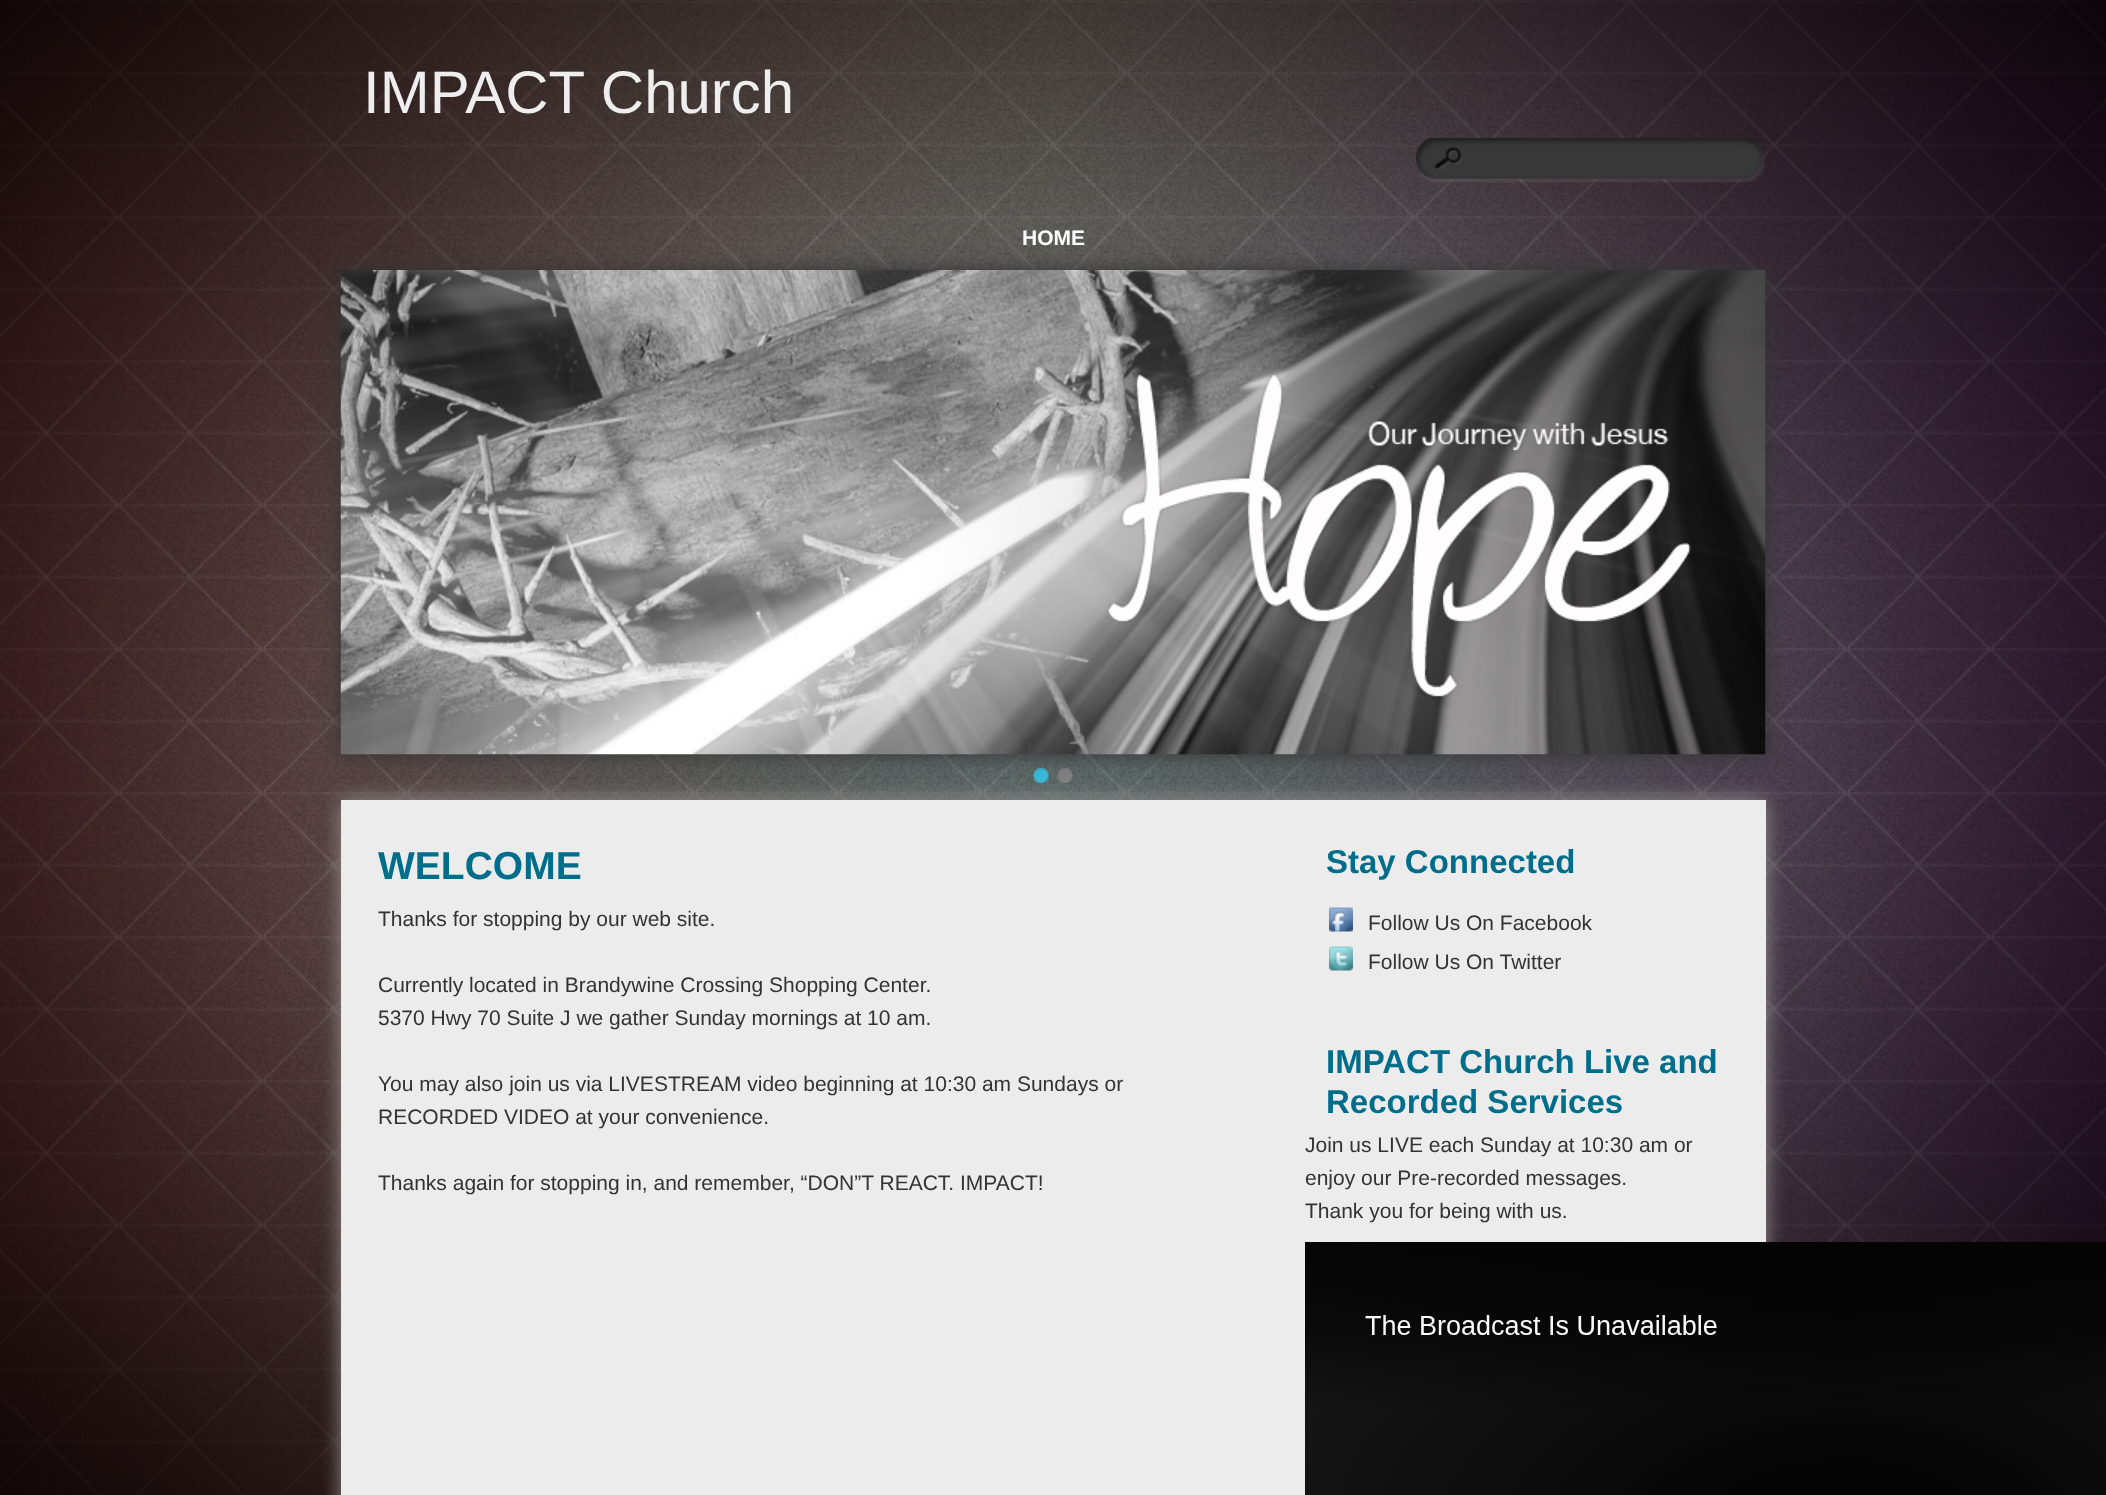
<!DOCTYPE html>
<meta charset="utf-8">
<style>body { margin: 0 } canvas { display: block }</style>
<canvas id="canvas" width="2106" height="1495"></canvas>
<script type="module">
  const canvas = document.getElementById("canvas");
  const ctx = canvas.getContext("2d");
  ctx.miterLimit = 4;
  ctx.fontKerning = "normal";
  async function loadImage(src) {
    const img = new Image();
    img.src = src;
    await img.decode();
    return img;
  }
  let gradient;

  ctx.fillStyle = "#ffffff";
  ctx.fillRect(0, 0, 2106, 1495);
  gradient = ctx.createLinearGradient(0, 748, 2106, 748);
  gradient.addColorStop(0, "#59201e");
  gradient.addColorStop(0.5, "#6a473a");
  gradient.addColorStop(1, "#401537");
  ctx.fillStyle = gradient;
  ctx.fillRect(0, 0, 2106, 1495);
  ctx.drawImage(await loadImage("img1.png"), 0, 0, 2106, 1495);
  ctx.drawImage(await loadImage("img2.png"), 0, 0, 2106, 1495);
  gradient = ctx.createRadialGradient(1053, 1053.71, 0, 1053, 1053.71, 1489);
  gradient.addColorStop(0, "rgba(0, 0, 0, 0)");
  gradient.addColorStop(0.5, "rgba(0, 0, 0, 0)");
  gradient.addColorStop(1, "rgba(0, 0, 0, 0.8)");
  ctx.fillStyle = gradient;
  ctx.beginPath();
  ctx.rect(0, 0, 2106, 1495);
  ctx.save();
  ctx.clip();
  ctx.scale(1, 1057 / 1489);
  ctx.fillRect(0, 0, 2106, 2107);
  ctx.restore();
  ctx.font = "60px Liberation Sans";
  ctx.fillStyle = "#eeeeee";
  ctx.fillText("IMPACT Church", 363, 113);
  ctx.drawImage(await loadImage("img3.png"), 1416, 138, 349, 45);
  ctx.drawImage(await loadImage("img5.png"), 1033, 768, 16, 15);
  ctx.drawImage(await loadImage("img6.png"), 1057, 768, 16, 15);
  ctx.fillStyle = "#333333";
  ctx.filter = "blur(10px)";
  ctx.beginPath();
  ctx.rect(341, 270, 1425, 485);
  ctx.fill();
  ctx.filter = "none";
  ctx.font = "bold 21px Liberation Sans";
  ctx.fillStyle = "#ffffff";
  ctx.fillText("HOME", 1022, 245);
  ctx.drawImage(await loadImage("img4.png"), 340, 270, 1426, 485);
  ctx.fillStyle = "#918e8c";
  ctx.filter = "blur(10px)";
  ctx.beginPath();
  ctx.rect(341, 800, 1425, 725);
  ctx.fill();
  ctx.filter = "none";
  ctx.fillStyle = "#ececec";
  ctx.fillRect(341, 800, 1425, 695);
  ctx.font = "bold 39px Liberation Sans";
  ctx.fillStyle = "#006e8b";
  ctx.fillText("WELCOME", 378, 879);
  ctx.font = "21px Liberation Sans";
  ctx.fillStyle = "#333333";
  ctx.fillText("Thanks for stopping by our web site.", 378, 926);
  ctx.fillText("Currently located in Brandywine Crossing Shopping Center.", 378, 992);
  ctx.fillText("5370 Hwy 70 Suite J we gather Sunday mornings at 10 am.", 378, 1025);
  ctx.fillText("You may also join us via LIVESTREAM video beginning at 10:30 am Sundays or", 378, 1091);
  ctx.fillText("RECORDED VIDEO at your convenience.", 378, 1124);
  ctx.fillText("Thanks again for stopping in, and remember, “DON”T REACT. IMPACT!", 378, 1190);
  ctx.font = "bold 33px Liberation Sans";
  ctx.fillStyle = "#006e8b";
  ctx.fillText("Stay Connected", 1326, 873);
  ctx.drawImage(await loadImage("img7.png"), 1329, 907, 24, 25);
  ctx.font = "21px Liberation Sans";
  ctx.fillStyle = "#333333";
  ctx.fillText("Follow Us On Facebook", 1368, 930);
  ctx.drawImage(await loadImage("img8.png"), 1329, 946, 24, 25);
  ctx.fillText("Follow Us On Twitter", 1368, 969);
  ctx.font = "bold 33px Liberation Sans";
  ctx.fillStyle = "#006e8b";
  ctx.fillText("IMPACT Church Live and", 1326, 1073);
  ctx.fillText("Recorded Services", 1326, 1113);
  ctx.font = "21px Liberation Sans";
  ctx.fillStyle = "#333333";
  ctx.fillText("Join us LIVE each Sunday at 10:30 am or", 1305, 1152);
  ctx.fillText("enjoy our Pre-recorded messages.", 1305, 1185);
  ctx.fillText("Thank you for being with us.", 1305, 1218);
  ctx.drawImage(await loadImage("img9.png"), 1305, 1242, 801, 253);
</script>
